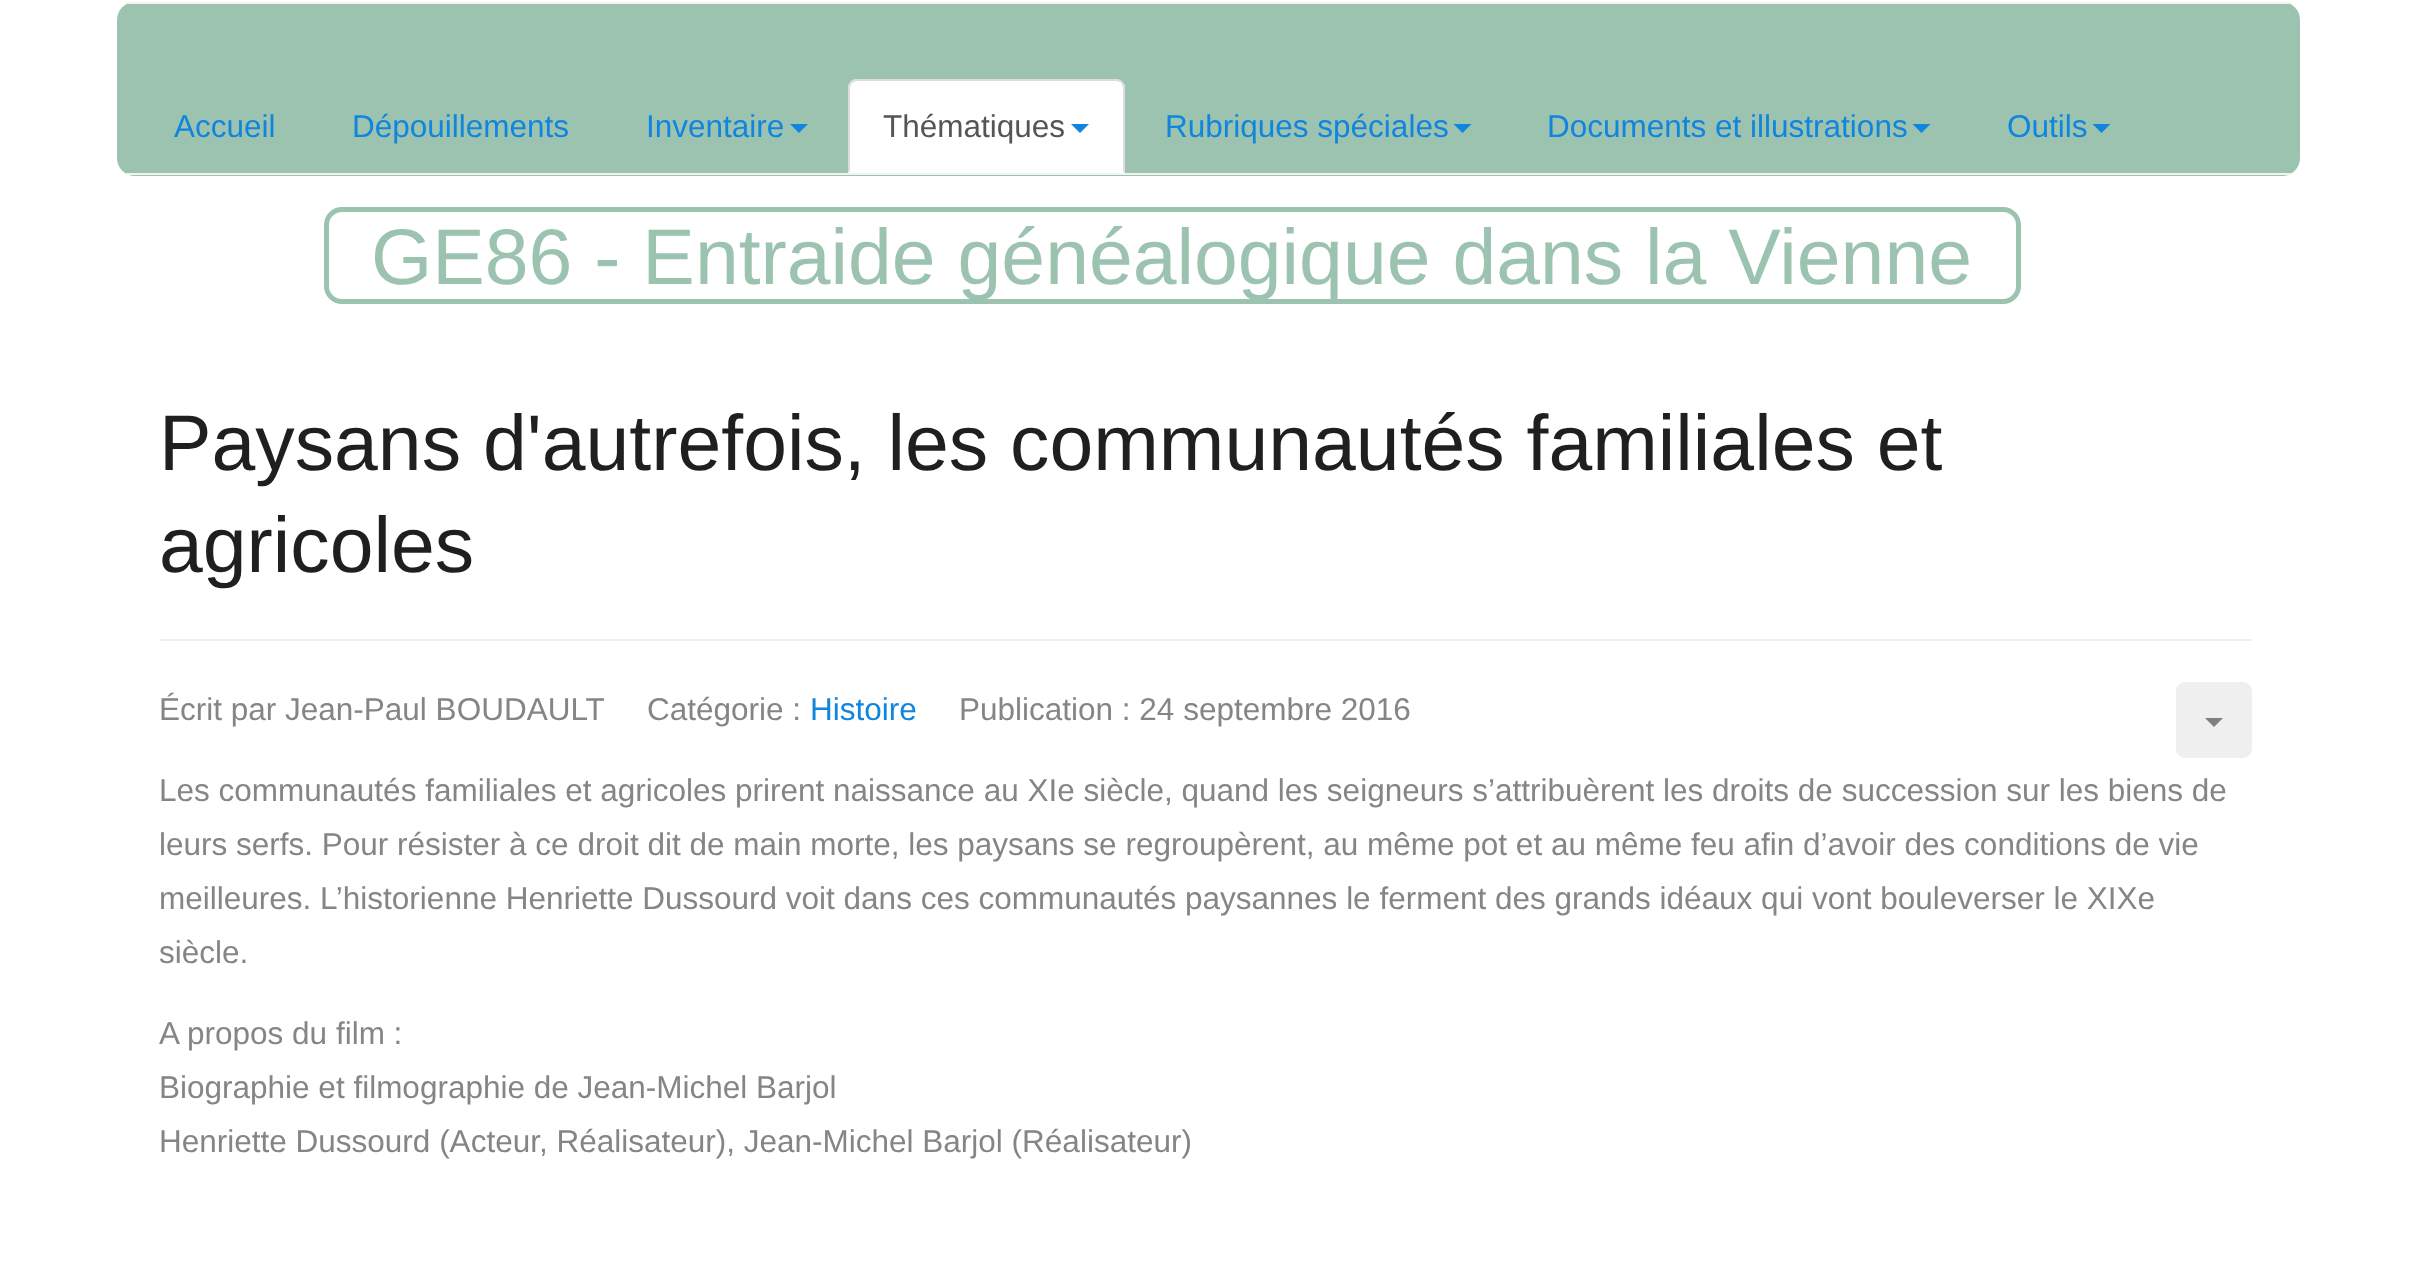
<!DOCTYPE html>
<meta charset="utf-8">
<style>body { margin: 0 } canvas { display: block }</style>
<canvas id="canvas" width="2409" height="1288"></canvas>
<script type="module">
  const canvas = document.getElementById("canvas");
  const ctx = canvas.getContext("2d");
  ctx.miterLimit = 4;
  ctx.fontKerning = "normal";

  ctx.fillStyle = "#ffffff";
  ctx.fillRect(0, 0, 2409, 1288);
  ctx.fillStyle = "#9cc3b0";
  ctx.beginPath();
  ctx.roundRect(117, 2, 2183, 174, 18);
  ctx.fill();
  ctx.fillStyle = "#f2f2f2";
  ctx.fillRect(126, 2, 2165, 2);
  ctx.fillRect(126, 173, 2165, 2);
  ctx.font = "31.5px Liberation Sans";
  ctx.fillStyle = "#1085de";
  ctx.fillText("Accueil", 174, 137);
  ctx.fillText("Dépouillements", 352, 137);
  ctx.fillText("Inventaire", 646, 137);
  ctx.beginPath();
  ctx.moveTo(790, 124);
  ctx.lineTo(808, 124);
  ctx.lineTo(799, 133);
  ctx.closePath();
  ctx.fill();
  ctx.fillStyle = "#ffffff";
  ctx.beginPath();
  ctx.roundRect(848, 79, 277, 94, [9, 9, 0, 0]);
  ctx.fill();
  ctx.fillStyle = "#dddddd";
  ctx.beginPath();
  ctx.moveTo(857, 79);
  ctx.bezierCurveTo(855, 79, 852, 80, 851, 81);
  ctx.lineTo(852, 83);
  ctx.lineTo(856, 81);
  ctx.lineTo(1116, 81);
  ctx.bezierCurveTo(1118, 81, 1120, 82, 1121, 83);
  ctx.lineTo(1122, 82);
  ctx.bezierCurveTo(1121, 80, 1118, 79, 1116, 79);
  ctx.closePath();
  ctx.fill();
  ctx.beginPath();
  ctx.moveTo(1122, 82);
  ctx.bezierCurveTo(1124, 83, 1125, 85, 1125, 88);
  ctx.lineTo(1125, 173);
  ctx.lineTo(1123, 171);
  ctx.lineTo(1123, 88);
  ctx.bezierCurveTo(1123, 86, 1122, 84, 1121, 83);
  ctx.closePath();
  ctx.fill();
  ctx.beginPath();
  ctx.moveTo(848, 86);
  ctx.bezierCurveTo(849, 84, 850, 83, 851, 81);
  ctx.lineTo(852, 83);
  ctx.lineTo(850, 87);
  ctx.lineTo(850, 171);
  ctx.lineTo(848, 173);
  ctx.closePath();
  ctx.fill();
  ctx.fillStyle = "#555555";
  ctx.fillText("Thématiques", 883, 137);
  ctx.fillStyle = "#1085de";
  ctx.beginPath();
  ctx.moveTo(1071, 124);
  ctx.lineTo(1089, 124);
  ctx.lineTo(1080, 133);
  ctx.closePath();
  ctx.fill();
  ctx.fillText("Rubriques spéciales", 1165, 137);
  ctx.beginPath();
  ctx.moveTo(1453.5, 124);
  ctx.lineTo(1471.5, 124);
  ctx.lineTo(1462.5, 133);
  ctx.closePath();
  ctx.fill();
  ctx.fillText("Documents et illustrations", 1547, 137);
  ctx.beginPath();
  ctx.moveTo(1912.5, 124);
  ctx.lineTo(1930.5, 124);
  ctx.lineTo(1921.5, 133);
  ctx.closePath();
  ctx.fill();
  ctx.fillText("Outils", 2007, 137);
  ctx.beginPath();
  ctx.moveTo(2092.5, 124);
  ctx.lineTo(2110.5, 124);
  ctx.lineTo(2101.5, 133);
  ctx.closePath();
  ctx.fill();
  ctx.beginPath();
  ctx.roundRect(326.5, 209.5, 1692, 92, 15.5);
  ctx.strokeStyle = "#9cc3b0";
  ctx.lineWidth = 5;
  ctx.stroke();
  ctx.font = "78.75px Liberation Sans";
  ctx.fillStyle = "#9cc3b0";
  ctx.fillText("GE86 - Entraide généalogique dans la Vienne", 371, 284);
  ctx.fillStyle = "#eeeeee";
  ctx.fillRect(160, 639, 2092, 2);
  ctx.fillStyle = "#1f1f1f";
  ctx.fillText("Paysans d'autrefois, les communautés familiales et", 159, 470);
  ctx.fillText("agricoles", 159, 572);
  ctx.font = "31.5px Liberation Sans";
  ctx.fillStyle = "#858585";
  ctx.fillText("Écrit par Jean-Paul BOUDAULT", 159, 720);
  ctx.fillText("Catégorie :", 647, 720);
  ctx.fillStyle = "#1085de";
  ctx.fillText("Histoire", 810, 720);
  ctx.fillStyle = "#858585";
  ctx.fillText("Publication : 24 septembre 2016", 959, 720);
  ctx.fillStyle = "#efefef";
  ctx.beginPath();
  ctx.roundRect(2176, 682, 76, 76, 9);
  ctx.fill();
  ctx.fillStyle = "#808080";
  ctx.beginPath();
  ctx.moveTo(2205, 718);
  ctx.lineTo(2223, 718);
  ctx.lineTo(2214, 727);
  ctx.closePath();
  ctx.fill();
  ctx.fillStyle = "#858585";
  ctx.fillText("Les communautés familiales et agricoles prirent naissance au XIe siècle, quand les seigneurs s’attribuèrent les droits de succession sur les biens de", 159, 801);
  ctx.fillText("leurs serfs. Pour résister à ce droit dit de main morte, les paysans se regroupèrent, au même pot et au même feu afin d’avoir des conditions de vie", 159, 855);
  ctx.fillText("meilleures. L’historienne Henriette Dussourd voit dans ces communautés paysannes le ferment des grands idéaux qui vont bouleverser le XIXe", 159, 909);
  ctx.fillText("siècle.", 159, 963);
  ctx.fillText("A propos du film :", 159, 1044);
  ctx.fillText("Biographie et filmographie de Jean-Michel Barjol", 159, 1098);
  ctx.fillText("Henriette Dussourd (Acteur, Réalisateur), Jean-Michel Barjol (Réalisateur)", 159, 1152);
</script>
